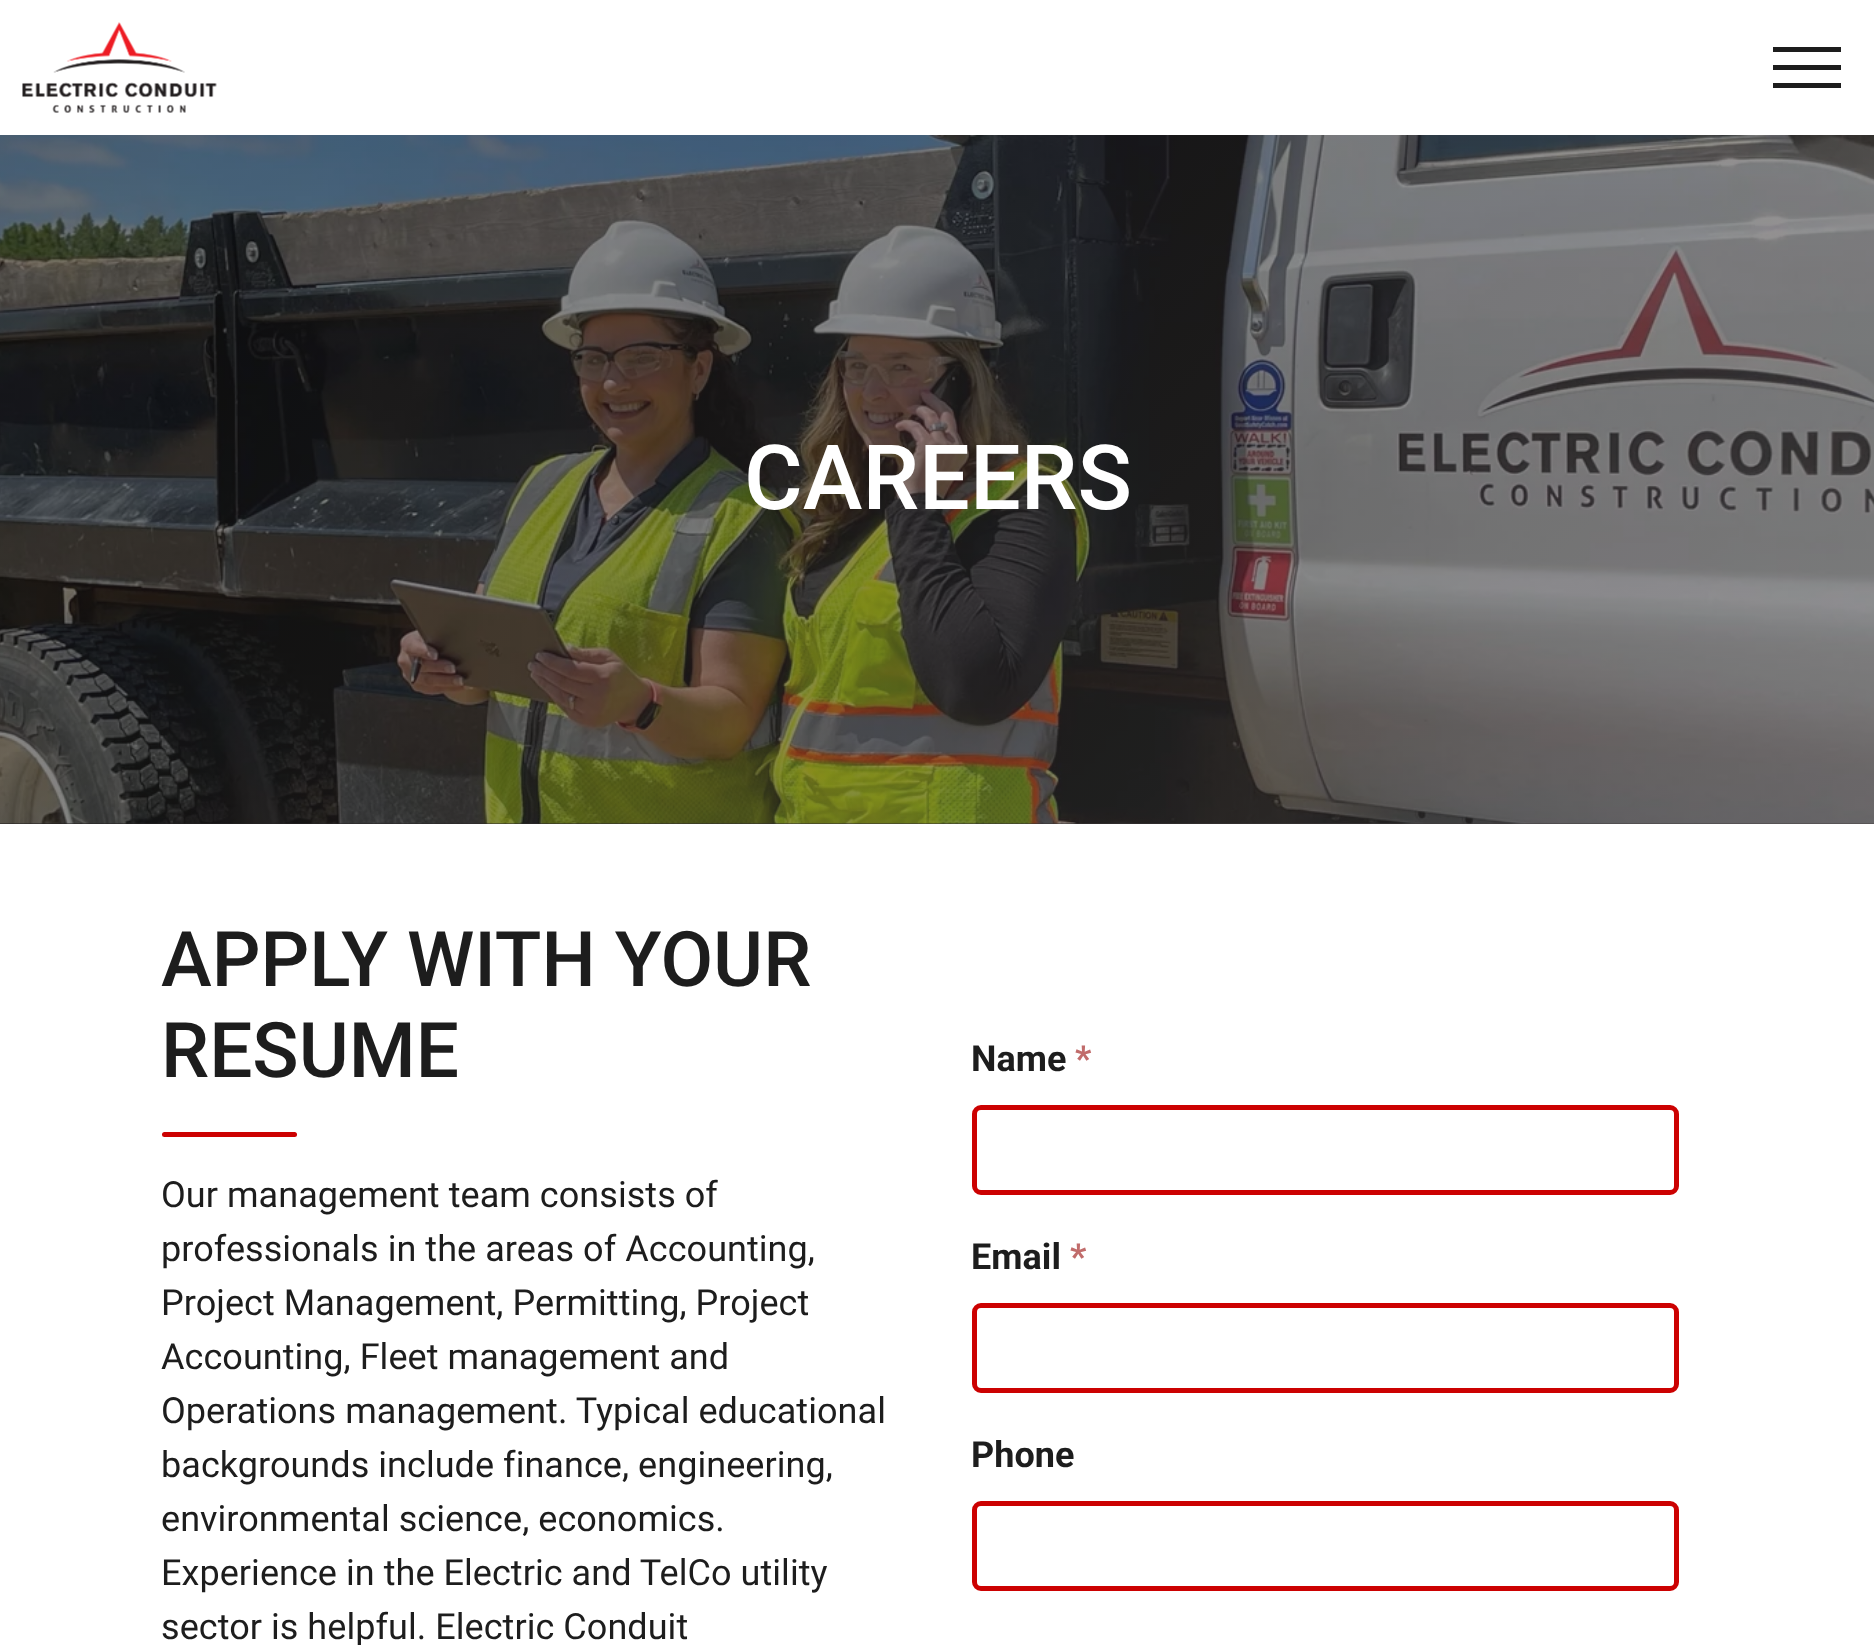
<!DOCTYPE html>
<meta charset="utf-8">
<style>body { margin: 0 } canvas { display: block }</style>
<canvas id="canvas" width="1874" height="1645"></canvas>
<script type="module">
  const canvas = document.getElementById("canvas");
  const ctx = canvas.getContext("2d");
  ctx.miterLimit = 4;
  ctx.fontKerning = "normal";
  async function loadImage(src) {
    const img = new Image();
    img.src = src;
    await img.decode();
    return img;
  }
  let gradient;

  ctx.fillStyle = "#ffffff";
  ctx.fillRect(0, 0, 1874, 1645);
  ctx.drawImage(await loadImage("img1.png"), 22, 22, 195, 91);
  ctx.fillStyle = "#1d1d1d";
  ctx.fillRect(1773, 65, 68, 5);
  ctx.fillRect(1773, 47, 68, 5);
  ctx.fillRect(1773, 83, 68, 5);
  gradient = ctx.createLinearGradient(296, -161, 1578, 1120);
  gradient.addColorStop(0, "#100f0f");
  gradient.addColorStop(1, "#494445");
  ctx.fillStyle = gradient;
  ctx.fillRect(0, 823, 1874, 1);
  ctx.drawImage(await loadImage("img2.png"), 0, 135, 1874, 689);
  gradient = ctx.createLinearGradient(296, -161, 1578, 1120);
  gradient.addColorStop(0, "rgba(16, 15, 15, 0.55)");
  gradient.addColorStop(1, "rgba(73, 68, 69, 0.55)");
  ctx.fillStyle = gradient;
  ctx.fillRect(0, 135, 1874, 689);
  ctx.font = "500 90px Roboto";
  ctx.fillStyle = "#ffffff";
  ctx.fillText("CAREERS", 744, 509);
  ctx.font = "500 76.5px Roboto";
  ctx.fillStyle = "#1d1d1d";
  ctx.fillText("APPLY WITH YOUR", 161, 986);
  ctx.fillText("RESUME", 161, 1077);
  ctx.fillStyle = "#cc0101";
  ctx.beginPath();
  ctx.roundRect(162, 1132, 135, 5, 2.5);
  ctx.fill();
  ctx.letterSpacing = "0.05px";
  ctx.font = "36px Roboto";
  ctx.fillStyle = "#1d1d1d";
  ctx.fillText("Our management team consists of", 161, 1207);
  ctx.fillText("professionals in the areas of Accounting,", 161, 1261);
  ctx.fillText("Project Management, Permitting, Project", 161, 1315);
  ctx.fillText("Accounting, Fleet management and", 161, 1369);
  ctx.fillText("Operations management. Typical educational", 161, 1423);
  ctx.fillText("backgrounds include finance, engineering,", 161, 1477);
  ctx.fillText("environmental science, economics.", 161, 1531);
  ctx.fillText("Experience in the Electric and TelCo utility", 161, 1585);
  ctx.fillText("sector is helpful. Electric Conduit", 161, 1639);
  ctx.font = "bold 36px Roboto";
  ctx.fillText("Name", 971, 1071);
  ctx.fillStyle = "#c16c6b";
  ctx.fillText("*", 1075, 1071);
  ctx.beginPath();
  ctx.roundRect(974.5, 1107.5, 702, 85, 6.5);
  ctx.strokeStyle = "#cc0101";
  ctx.lineWidth = 5;
  ctx.stroke();
  ctx.fillStyle = "#1d1d1d";
  ctx.fillText("Email", 971, 1269);
  ctx.fillStyle = "#c16c6b";
  ctx.fillText("*", 1070, 1269);
  ctx.beginPath();
  ctx.roundRect(974.5, 1305.5, 702, 85, 6.5);
  ctx.stroke();
  ctx.fillStyle = "#1d1d1d";
  ctx.fillText("Phone", 971, 1467);
  ctx.beginPath();
  ctx.roundRect(974.5, 1503.5, 702, 85, 6.5);
  ctx.stroke();
</script>
